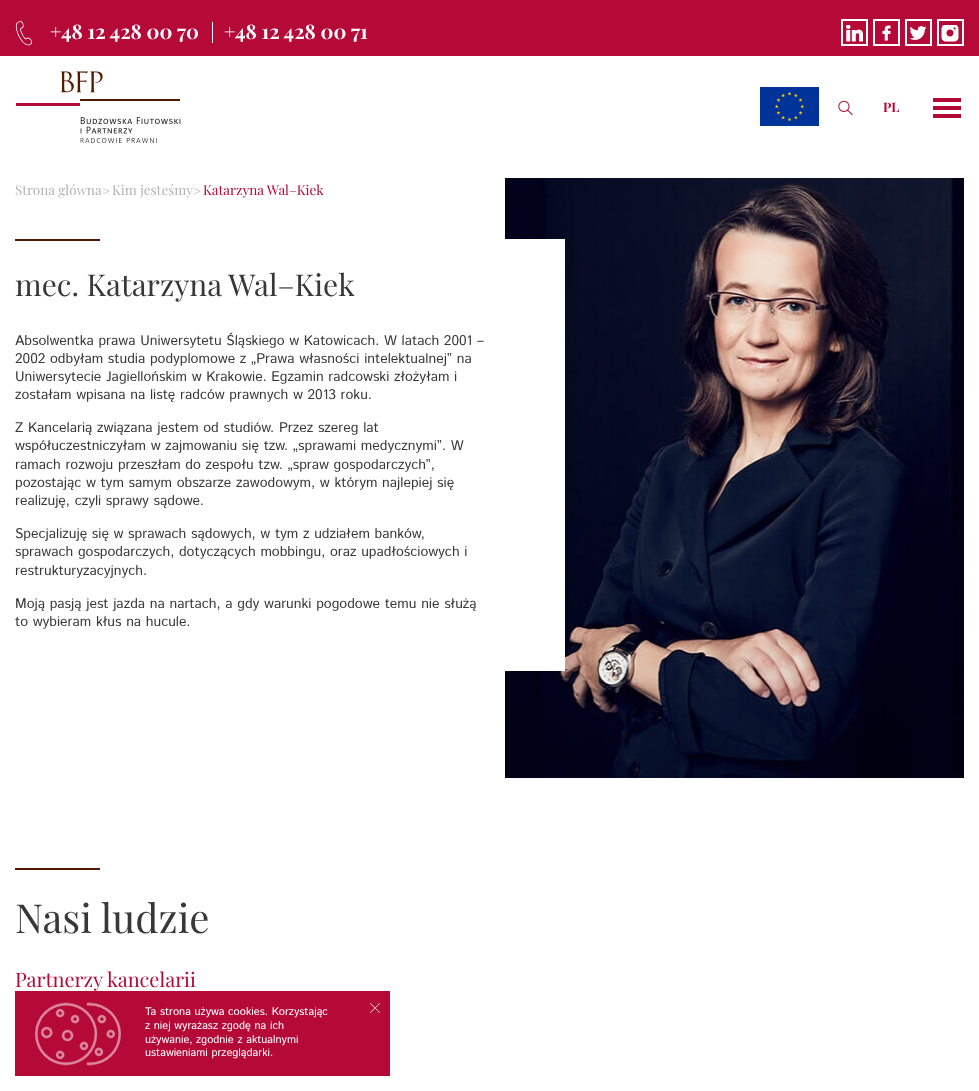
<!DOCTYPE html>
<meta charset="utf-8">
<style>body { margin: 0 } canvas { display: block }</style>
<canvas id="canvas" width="979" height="1091"></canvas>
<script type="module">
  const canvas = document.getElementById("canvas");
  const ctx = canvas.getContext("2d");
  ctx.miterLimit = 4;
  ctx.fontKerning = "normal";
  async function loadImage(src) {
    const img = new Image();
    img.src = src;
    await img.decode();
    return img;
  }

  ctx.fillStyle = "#ffffff";
  ctx.fillRect(0, 0, 979, 1091);
  ctx.fillStyle = "#b50937";
  ctx.fillRect(0, 0, 979, 56);
  ctx.drawImage(await loadImage("img1.png"), 15, 21, 18, 25);
  ctx.font = "bold 20px Playfair Display";
  ctx.fillStyle = "#ffffff";
  ctx.fillText("+48 12 428 00 70", 50, 39);
  ctx.fillRect(212, 22, 1, 21);
  ctx.fillText("+48 12 428 00 71", 224, 39);
  ctx.strokeStyle = "#ffffff";
  ctx.lineWidth = 2;
  ctx.strokeRect(842, 20, 25, 25);
  ctx.drawImage(await loadImage("img2.png"), 846, 25, 17, 17);
  ctx.strokeRect(874, 20, 25, 25);
  ctx.drawImage(await loadImage("img3.png"), 882, 25, 9, 16);
  ctx.strokeRect(906, 20, 25, 25);
  ctx.drawImage(await loadImage("img4.png"), 909, 26, 18, 14);
  ctx.strokeRect(938, 20, 25, 25);
  ctx.drawImage(await loadImage("img5.png"), 941, 25, 18, 17);
  ctx.drawImage(await loadImage("img6.png"), 760, 87, 59, 39);
  ctx.drawImage(await loadImage("img7.png"), 16, 71, 165, 72);
  ctx.drawImage(await loadImage("img8.png"), 838, 100, 15, 16);
  ctx.font = "bold 13px Playfair Display";
  ctx.fillStyle = "#b50937";
  ctx.fillText("PL", 883, 112);
  ctx.fillRect(933, 98, 28, 4);
  ctx.fillRect(933, 106, 28, 4);
  ctx.fillRect(933, 114, 28, 4);
  ctx.font = "13.5px Playfair Display";
  ctx.fillStyle = "#b3b3b3";
  ctx.fillText("Strona główna", 15, 195);
  ctx.fillText(">", 102, 196);
  ctx.fillText("Kim jesteśmy", 112, 195);
  ctx.fillText(">", 193, 196);
  ctx.fillStyle = "#b50937";
  ctx.fillText("Katarzyna Wal–Kiek", 203, 195);
  ctx.drawImage(await loadImage("img9.png"), 505, 178, 459, 600);
  ctx.fillStyle = "#ffffff";
  ctx.fillRect(505, 239, 60, 432);
  ctx.fillStyle = "#541800";
  ctx.fillRect(15, 239, 85, 2);
  ctx.font = "30px Playfair Display";
  ctx.fillStyle = "#383838";
  ctx.fillText("mec. Katarzyna Wal–Kiek", 15, 296);
  ctx.font = "14px Istok Web";
  ctx.fillText("Absolwentka prawa Uniwersytetu Śląskiego w Katowicach. W latach 2001 –", 15, 345);
  ctx.fillText("2002 odbyłam studia podyplomowe z „Prawa własności intelektualnej” na", 15, 363);
  ctx.fillText("Uniwersytecie Jagiellońskim w Krakowie. Egzamin radcowski złożyłam i", 15, 381);
  ctx.fillText("zostałam wpisana na listę radców prawnych w 2013 roku.", 15, 399);
  ctx.fillText("Z Kancelarią związana jestem od studiów. Przez szereg lat", 15, 432);
  ctx.fillText("współuczestniczyłam w zajmowaniu się tzw. „sprawami medycznymi”. W", 15, 450);
  ctx.fillText("ramach rozwoju przeszłam do zespołu tzw. „spraw gospodarczych”,", 15, 469);
  ctx.fillText("pozostając w tym samym obszarze zawodowym, w którym najlepiej się", 15, 487);
  ctx.fillText("realizuję, czyli sprawy sądowe.", 15, 505);
  ctx.fillText("Specjalizuję się w sprawach sądowych, w tym z udziałem banków,", 15, 538);
  ctx.fillText("sprawach gospodarczych, dotyczących mobbingu, oraz upadłościowych i", 15, 556);
  ctx.fillText("restrukturyzacyjnych.", 15, 575);
  ctx.fillText("Moją pasją jest jazda na nartach, a gdy warunki pogodowe temu nie służą", 15, 608);
  ctx.fillText("to wybieram kłus na hucule.", 15, 626);
  ctx.fillStyle = "#541800";
  ctx.fillRect(15, 868, 85, 2);
  ctx.font = "40px Playfair Display";
  ctx.fillStyle = "#383838";
  ctx.fillText("Nasi ludzie", 15, 933);
  ctx.font = "20px Playfair Display";
  ctx.fillStyle = "#b50937";
  ctx.fillText("Partnerzy kancelarii", 15, 987);
  ctx.fillRect(15, 991, 375, 85);
  ctx.drawImage(await loadImage("img10.png"), 35, 1002, 86, 64);
  ctx.font = "11px Istok Web";
  ctx.fillStyle = "#ffffff";
  ctx.fillText("Ta strona używa cookies. Korzystając", 145, 1015);
  ctx.fillText("z niej wyrażasz zgodę na ich", 145, 1029);
  ctx.fillText("używanie, zgodnie z aktualnymi", 145, 1043);
  ctx.fillText("ustawieniami przeglądarki.", 145, 1056);
  ctx.drawImage(await loadImage("img11.png"), 370, 1003, 10, 10);
</script>
